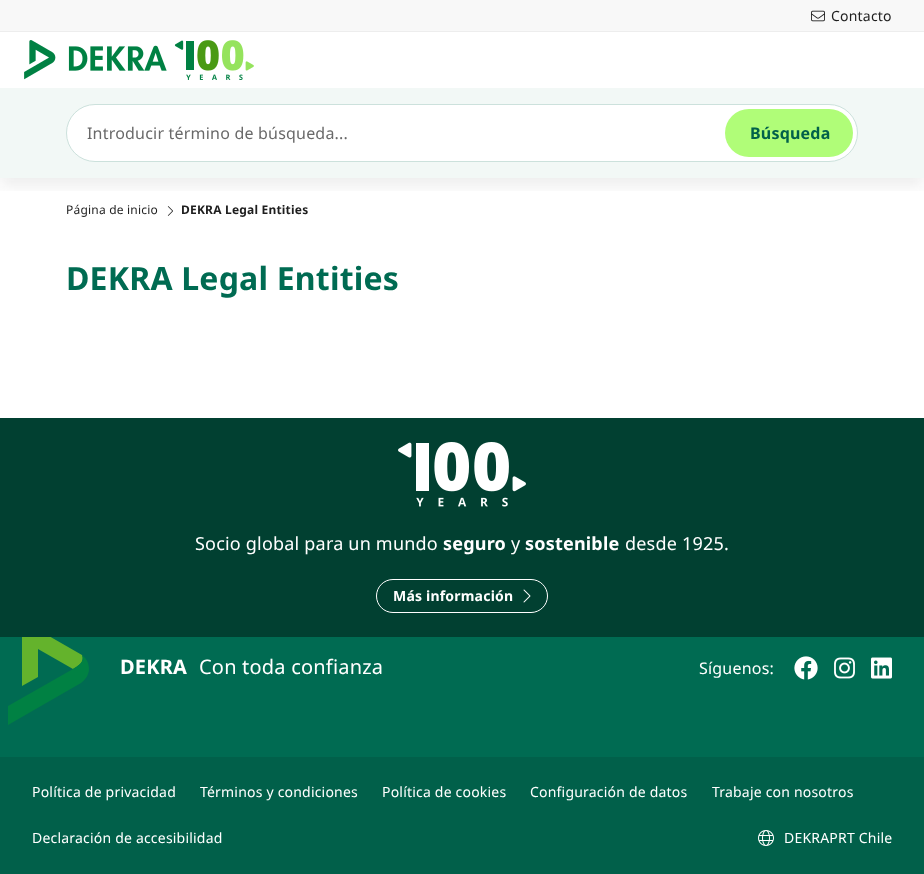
<!DOCTYPE html>
<meta charset="utf-8">
<style>body { margin: 0 } canvas { display: block }</style>
<canvas id="canvas" width="924" height="874"></canvas>
<script type="module">
  const canvas = document.getElementById("canvas");
  const ctx = canvas.getContext("2d");
  ctx.miterLimit = 4;
  ctx.fontKerning = "normal";
  async function loadImage(src) {
    const img = new Image();
    img.src = src;
    await img.decode();
    return img;
  }

  ctx.fillStyle = "#ffffff";
  ctx.fillRect(0, 0, 924, 874);
  ctx.drawImage(await loadImage("img3.png"), 167, 206, 6, 10);
  ctx.save();
  ctx.beginPath();
  ctx.rect(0, 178, 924, 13);
  ctx.clip();
  ctx.fillStyle = "rgba(30, 30, 30, 0.08)";
  ctx.filter = "blur(8px)";
  ctx.beginPath();
  ctx.rect(0, 8, 924, 178);
  ctx.fill();
  ctx.filter = "none";
  ctx.restore();
  ctx.fillStyle = "#f8f8f8";
  ctx.fillRect(0, 0, 924, 31);
  ctx.fillStyle = "#ededed";
  ctx.fillRect(0, 31, 924, 1);
  ctx.drawImage(await loadImage("img1.png"), 811, 10, 14, 12);
  ctx.letterSpacing = "0.2px";
  ctx.font = "14px Noto Sans";
  ctx.fillStyle = "#1e1e1e";
  ctx.fillText("Contacto", 831, 21);
  ctx.drawImage(await loadImage("img2.png"), 24, 40, 230, 40);
  ctx.fillStyle = "#f2f8f6";
  ctx.fillRect(0, 88, 924, 90);
  ctx.fillStyle = "#ffffff";
  ctx.beginPath();
  ctx.roundRect(66.5, 104.5, 791, 57, 28.5);
  ctx.fill();
  ctx.strokeStyle = "#cce1dc";
  ctx.stroke();
  ctx.font = "16px Noto Sans";
  ctx.fillStyle = "#696969";
  ctx.fillText("Introducir término de búsqueda...", 87, 139);
  ctx.fillStyle = "#b0fd78";
  ctx.beginPath();
  ctx.roundRect(725, 109, 128, 48, 24);
  ctx.fill();
  ctx.font = "bold 16px Noto Sans";
  ctx.fillStyle = "#01604a";
  ctx.fillText("Búsqueda", 750, 139);
  ctx.font = "12px Noto Sans";
  ctx.fillStyle = "#1e1e1e";
  ctx.fillText("Página de inicio", 66, 214);
  ctx.font = "bold 12px Noto Sans";
  ctx.fillText("DEKRA Legal Entities", 181, 214);
  ctx.font = "bold 32px Noto Sans";
  ctx.fillStyle = "#006b52";
  ctx.fillText("DEKRA Legal Entities", 66, 290);
  ctx.fillStyle = "#014031";
  ctx.fillRect(0, 418, 924, 219);
  ctx.drawImage(await loadImage("img4.png"), 398, 442, 128, 65);
  ctx.font = "18px Noto Sans";
  ctx.fillStyle = "#ffffff";
  ctx.fillText("Socio global para un mundo", 195, 550);
  ctx.font = "bold 18px Noto Sans";
  ctx.fillText("seguro", 443, 550);
  ctx.font = "18px Noto Sans";
  ctx.fillText("y", 511, 550);
  ctx.font = "bold 18px Noto Sans";
  ctx.fillText("sostenible", 525, 550);
  ctx.font = "18px Noto Sans";
  ctx.fillText("desde 1925.", 625, 550);
  ctx.beginPath();
  ctx.roundRect(376.5, 579.5, 171, 33, 16.5);
  ctx.strokeStyle = "#ffffff";
  ctx.stroke();
  ctx.font = "bold 14px Noto Sans";
  ctx.fillText("Más información", 393, 601);
  ctx.drawImage(await loadImage("img5.png"), 523, 589, 8, 14);
  ctx.fillStyle = "#006b52";
  ctx.fillRect(0, 637, 924, 120);
  ctx.save();
  ctx.beginPath();
  ctx.rect(8, 637, 88, 88);
  ctx.clip();
  ctx.fillStyle = "#64b32c";
  ctx.beginPath();
  ctx.moveTo(38, 649);
  ctx.lineTo(73, 669);
  ctx.bezierCurveTo(78, 666, 85, 662, 82, 655);
  ctx.lineTo(28, 624);
  ctx.lineTo(25, 623);
  ctx.bezierCurveTo(19, 625, 22, 635, 22, 637);
  ctx.lineTo(22, 686);
  ctx.lineTo(38, 677);
  ctx.closePath();
  ctx.fill();
  ctx.restore();
  ctx.fillStyle = "#008143";
  ctx.beginPath();
  ctx.moveTo(83, 656);
  ctx.lineTo(82, 655);
  ctx.bezierCurveTo(85, 662, 78, 666, 73, 669);
  ctx.lineTo(8, 706);
  ctx.lineTo(8, 725);
  ctx.lineTo(81, 683);
  ctx.bezierCurveTo(85, 680, 89, 675, 89, 669);
  ctx.bezierCurveTo(89, 663, 86, 658, 83, 656);
  ctx.closePath();
  ctx.fill();
  ctx.font = "bold 20px Noto Sans";
  ctx.fillStyle = "#ffffff";
  ctx.fillText("DEKRA", 120, 674);
  ctx.font = "20px Noto Sans";
  ctx.fillText("Con toda confianza", 199, 674);
  ctx.font = "16px Noto Sans";
  ctx.fillText("Síguenos:", 699, 674);
  ctx.drawImage(await loadImage("img6.png"), 794, 656, 24, 24);
  ctx.drawImage(await loadImage("img7.png"), 834, 657, 21, 22);
  ctx.drawImage(await loadImage("img8.png"), 871, 657, 21, 22);
  ctx.fillStyle = "#01604a";
  ctx.fillRect(0, 757, 924, 117);
  ctx.font = "14px Noto Sans";
  ctx.fillStyle = "#ffffff";
  ctx.fillText("Política de privacidad", 32, 797);
  ctx.fillText("Términos y condiciones", 200, 797);
  ctx.fillText("Política de cookies", 382, 797);
  ctx.fillText("Configuración de datos", 530, 797);
  ctx.fillText("Trabaje con nosotros", 712, 797);
  ctx.fillText("Declaración de accesibilidad", 32, 843);
  ctx.drawImage(await loadImage("img9.png"), 758, 830, 16, 16);
  ctx.fillText("DEKRAPRT Chile", 784, 843);
</script>
